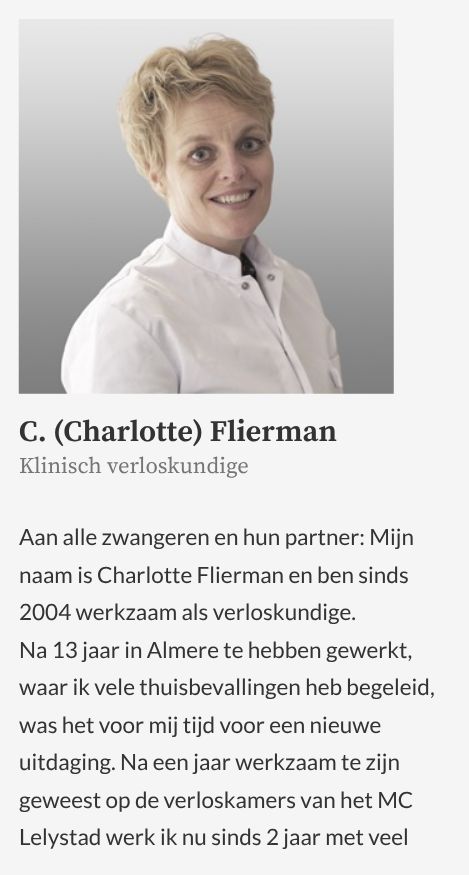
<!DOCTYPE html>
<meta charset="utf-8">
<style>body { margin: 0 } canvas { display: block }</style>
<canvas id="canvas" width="469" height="875"></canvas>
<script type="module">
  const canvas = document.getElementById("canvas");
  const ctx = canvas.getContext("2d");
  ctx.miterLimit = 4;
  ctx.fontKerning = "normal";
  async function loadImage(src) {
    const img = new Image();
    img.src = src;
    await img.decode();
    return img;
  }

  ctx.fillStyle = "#f5f5f5";
  ctx.fillRect(0, 0, 469, 875);
  ctx.drawImage(await loadImage("img1.png"), 18, 19, 376, 375);
  ctx.font = "bold 30px Source Serif Pro";
  ctx.fillStyle = "#333333";
  ctx.fillText("C. (Charlotte) Flierman", 19, 441);
  ctx.font = "22.5px Source Serif Pro";
  ctx.fillStyle = "#757575";
  ctx.fillText("Klinisch verloskundige", 19, 473);
  ctx.font = "22.5px Lato";
  ctx.fillStyle = "#333333";
  ctx.fillText("Aan alle zwangeren en hun partner: Mijn", 19, 545);
  ctx.fillText("naam is Charlotte Flierman en ben sinds", 19, 583);
  ctx.fillText("2004 werkzaam als verloskundige.", 19, 620);
  ctx.fillText("Na 13 jaar in Almere te hebben gewerkt,", 19, 658);
  ctx.fillText("waar ik vele thuisbevallingen heb begeleid,", 19, 695);
  ctx.fillText("was het voor mij tijd voor een nieuwe", 19, 733);
  ctx.fillText("uitdaging. Na een jaar werkzaam te zijn", 19, 770);
  ctx.fillText("geweest op de verloskamers van het MC", 19, 808);
  ctx.fillText("Lelystad werk ik nu sinds 2 jaar met veel", 19, 845);
</script>
